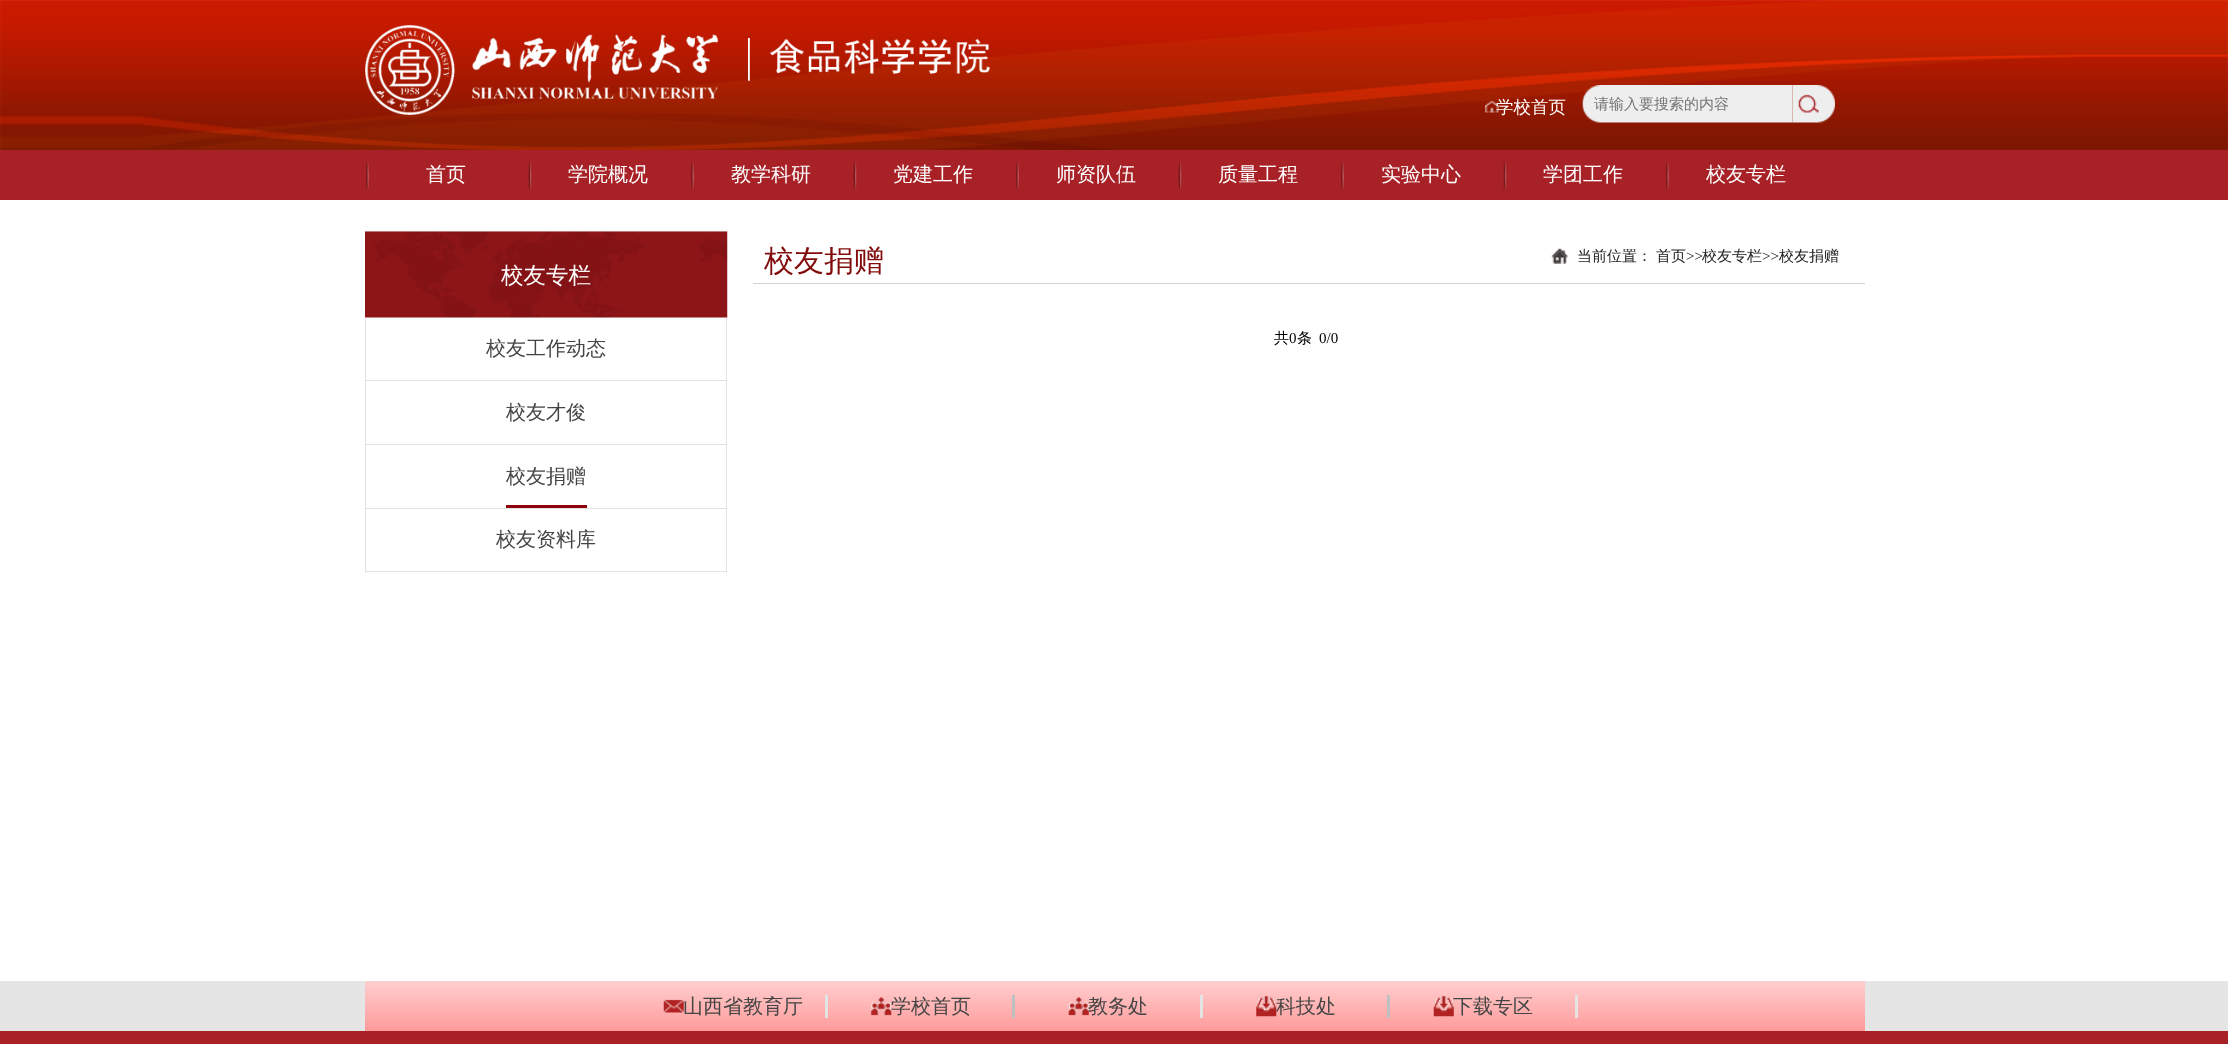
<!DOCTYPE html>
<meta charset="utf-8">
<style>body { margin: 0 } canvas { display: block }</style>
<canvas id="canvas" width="2228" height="1044"></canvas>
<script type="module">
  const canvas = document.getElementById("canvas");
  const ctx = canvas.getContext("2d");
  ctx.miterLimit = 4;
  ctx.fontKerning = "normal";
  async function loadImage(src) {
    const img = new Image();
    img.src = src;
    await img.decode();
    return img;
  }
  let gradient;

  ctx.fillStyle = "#ffffff";
  ctx.fillRect(0, 0, 2228, 1044);
  ctx.drawImage(await loadImage("img1.png"), 0, 0, 2228, 150);
  ctx.drawImage(await loadImage("img2.png"), 365, 25, 625, 90);
  ctx.drawImage(await loadImage("img3.png"), 1485, 101, 14, 12);
  ctx.font = "500 17.5px WenQuanYi Zen Hei";
  ctx.fillText("学校首页", 1496, 113);
  ctx.drawImage(await loadImage("img4.png"), 1582, 85, 211, 38);
  ctx.font = "500 15px WenQuanYi Zen Hei";
  ctx.fillStyle = "#757575";
  ctx.fillText("请输入要搜索的内容", 1594, 109);
  ctx.drawImage(await loadImage("img5.png"), 1792, 85, 43, 38);
  ctx.fillStyle = "#a72126";
  ctx.fillRect(0, 150, 2228, 50);
  ctx.drawImage(await loadImage("img6.png"), 366, 162, 3, 27);
  ctx.font = "500 20px WenQuanYi Zen Hei";
  ctx.fillStyle = "#ffffff";
  ctx.fillText("首页", 426, 181);
  ctx.drawImage(await loadImage("img7.png"), 528, 162, 4, 27);
  ctx.fillText("学院概况", 568, 181);
  ctx.drawImage(await loadImage("img6.png"), 691, 162, 3, 27);
  ctx.fillText("教学科研", 731, 181);
  ctx.drawImage(await loadImage("img7.png"), 853, 162, 4, 27);
  ctx.fillText("党建工作", 893, 181);
  ctx.drawImage(await loadImage("img6.png"), 1016, 162, 3, 27);
  ctx.fillText("师资队伍", 1056, 181);
  ctx.drawImage(await loadImage("img7.png"), 1178, 162, 4, 27);
  ctx.fillText("质量工程", 1218, 181);
  ctx.drawImage(await loadImage("img6.png"), 1341, 162, 3, 27);
  ctx.fillText("实验中心", 1381, 181);
  ctx.drawImage(await loadImage("img7.png"), 1503, 162, 4, 27);
  ctx.fillText("学团工作", 1543, 181);
  ctx.drawImage(await loadImage("img6.png"), 1666, 162, 3, 27);
  ctx.fillText("校友专栏", 1706, 181);
  ctx.drawImage(await loadImage("img8.png"), 365, 231, 363, 87);
  ctx.font = "500 22.5px WenQuanYi Zen Hei";
  ctx.fillText("校友专栏", 501, 283);
  ctx.fillStyle = "#e2e2e2";
  ctx.fillRect(726, 318, 1, 255);
  ctx.fillRect(365, 318, 1, 255);
  ctx.fillRect(366, 380, 360, 1);
  ctx.font = "500 20px WenQuanYi Zen Hei";
  ctx.fillStyle = "#444444";
  ctx.fillText("校友工作动态", 486, 355);
  ctx.fillStyle = "#e2e2e2";
  ctx.fillRect(366, 444, 360, 1);
  ctx.fillStyle = "#444444";
  ctx.fillText("校友才俊", 506, 419);
  ctx.fillStyle = "#8f000b";
  ctx.fillRect(506, 505, 81, 3);
  ctx.fillStyle = "#e2e2e2";
  ctx.fillRect(366, 508, 360, 1);
  ctx.fillStyle = "#444444";
  ctx.fillText("校友捐赠", 506, 483);
  ctx.fillStyle = "#e2e2e2";
  ctx.fillRect(366, 571, 360, 1);
  ctx.fillStyle = "#444444";
  ctx.fillText("校友资料库", 496, 546);
  ctx.fillStyle = "#d3d3d3";
  ctx.fillRect(753, 283, 1112, 1);
  ctx.font = "500 30px WenQuanYi Zen Hei";
  ctx.fillStyle = "#820b0b";
  ctx.fillText("校友捐赠", 764, 271);
  ctx.drawImage(await loadImage("img9.png"), 1551, 248, 17, 16);
  ctx.font = "500 15px WenQuanYi Zen Hei";
  ctx.fillStyle = "#222222";
  ctx.fillText("当前位置：", 1577, 261);
  ctx.fillText("首页", 1656, 261);
  ctx.font = "15px Liberation Serif";
  ctx.fillText(">>", 1686, 261);
  ctx.font = "500 15px WenQuanYi Zen Hei";
  ctx.fillText("校友专栏", 1702, 261);
  ctx.font = "15px Liberation Serif";
  ctx.fillText(">>", 1762, 261);
  ctx.font = "500 15px WenQuanYi Zen Hei";
  ctx.fillText("校友捐赠", 1779, 261);
  ctx.fillStyle = "#000000";
  ctx.fillText("共", 1274, 343);
  ctx.font = "15px Liberation Serif";
  ctx.fillText("0", 1289, 343);
  ctx.font = "500 15px WenQuanYi Zen Hei";
  ctx.fillText("条", 1297, 343);
  ctx.font = "15px Liberation Serif";
  ctx.fillText("0/0", 1319, 343);
  ctx.fillStyle = "#e5e5e5";
  ctx.fillRect(0, 981, 2228, 50);
  gradient = ctx.createLinearGradient(365, 981, 365, 1031);
  gradient.addColorStop(0, "#ffcece");
  gradient.addColorStop(1, "#ff9b9b");
  ctx.fillStyle = gradient;
  ctx.fillRect(365, 981, 1500, 50);
  ctx.fillStyle = "#e4e4e4";
  ctx.fillRect(825, 995, 3, 23);
  ctx.drawImage(await loadImage("img10.png"), 663, 999, 21, 14);
  ctx.font = "500 20px WenQuanYi Zen Hei";
  ctx.fillStyle = "#444444";
  ctx.fillText("山西省教育厅", 683, 1013);
  ctx.fillStyle = "#bfbfbf";
  ctx.fillRect(1012, 995, 3, 23);
  ctx.drawImage(await loadImage("img11.png"), 871, 997, 21, 19);
  ctx.fillStyle = "#444444";
  ctx.fillText("学校首页", 891, 1013);
  ctx.fillStyle = "#e4e4e4";
  ctx.fillRect(1200, 995, 3, 23);
  ctx.drawImage(await loadImage("img12.png"), 1068, 997, 21, 19);
  ctx.fillStyle = "#444444";
  ctx.fillText("教务处", 1088, 1013);
  ctx.fillStyle = "#bfbfbf";
  ctx.fillRect(1387, 995, 3, 23);
  ctx.drawImage(await loadImage("img13.png"), 1256, 996, 21, 21);
  ctx.fillStyle = "#444444";
  ctx.fillText("科技处", 1276, 1013);
  ctx.fillStyle = "#e4e4e4";
  ctx.fillRect(1575, 995, 3, 23);
  ctx.drawImage(await loadImage("img14.png"), 1433, 996, 21, 21);
  ctx.fillStyle = "#444444";
  ctx.fillText("下载专区", 1453, 1013);
  ctx.fillStyle = "#a72126";
  ctx.fillRect(0, 1031, 2228, 13);
</script>
